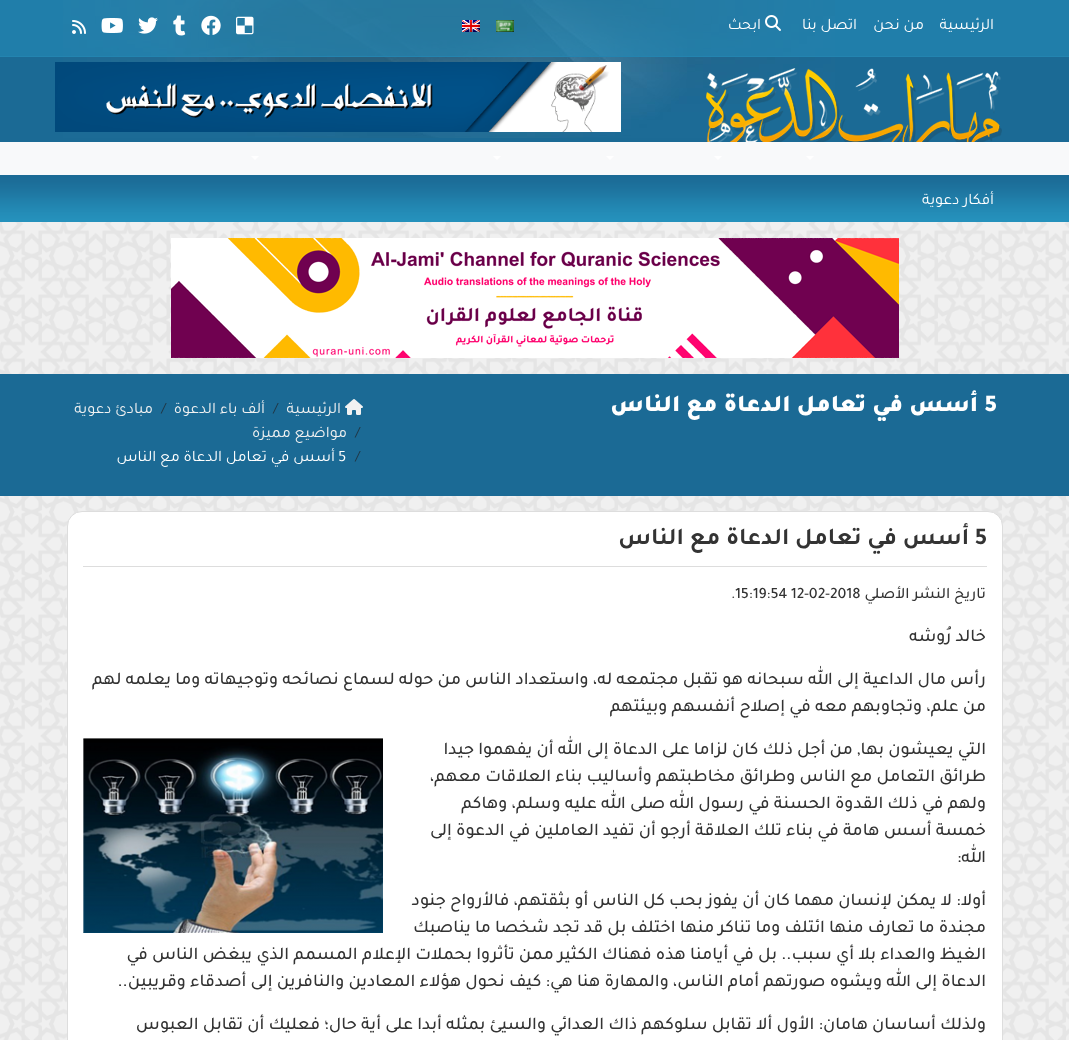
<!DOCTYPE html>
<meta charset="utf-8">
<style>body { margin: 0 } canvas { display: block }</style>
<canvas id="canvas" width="1069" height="1040"></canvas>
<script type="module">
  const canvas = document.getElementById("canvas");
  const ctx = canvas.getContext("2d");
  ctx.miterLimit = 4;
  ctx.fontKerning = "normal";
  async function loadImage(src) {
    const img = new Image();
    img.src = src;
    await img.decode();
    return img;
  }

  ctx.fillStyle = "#ffffff";
  ctx.fillRect(0, 0, 1069, 1040);
  ctx.drawImage(await loadImage("img1.png"), 0, 222, 1069, 818);
  ctx.fillStyle = "#1b6a95";
  ctx.fillRect(0, 0, 1069, 142);
  ctx.drawImage(await loadImage("img2.png"), 63, 0, 772, 138);
  ctx.fillStyle = "rgba(37, 140, 185, 0.6)";
  ctx.fillRect(0, 0, 1069, 56);
  ctx.fillStyle = "#2384b0";
  ctx.fillRect(0, 56, 1069, 1);
  ctx.direction = "rtl";
  ctx.font = "16px Tajawal";
  ctx.fillStyle = "#ffffff";
  ctx.fillText("الرئيسية", 994, 29);
  ctx.fillText("من نحن", 924, 29);
  ctx.fillText("اتصل بنا", 857, 29);
  ctx.drawImage(await loadImage("img3.png"), 765, 15, 16, 16);
  ctx.fillText("ابحث", 761, 29);
  ctx.drawImage(await loadImage("img4.png"), 496, 20, 18, 12);
  ctx.drawImage(await loadImage("img5.png"), 462, 20, 18, 12);
  ctx.drawImage(await loadImage("img6.png"), 236, 16, 18, 19);
  ctx.drawImage(await loadImage("img7.png"), 201, 15, 20, 20);
  ctx.drawImage(await loadImage("img8.png"), 173, 15, 13, 21);
  ctx.drawImage(await loadImage("img9.png"), 138, 17, 20, 17);
  ctx.drawImage(await loadImage("img10.png"), 101, 18, 22, 15);
  ctx.drawImage(await loadImage("img11.png"), 72, 20, 14, 14);
  ctx.drawImage(await loadImage("img12.png"), 706, 68, 296, 74);
  ctx.drawImage(await loadImage("img13.png"), 55, 62, 566, 70);
  ctx.fillStyle = "#f8f9fa";
  ctx.fillRect(0, 142, 1069, 33);
  ctx.drawImage(await loadImage("img14.png"), 0, 175, 1069, 47);
  ctx.fillStyle = "#ffffff";
  ctx.beginPath();
  ctx.moveTo(806, 156);
  ctx.lineTo(814, 156);
  ctx.lineTo(810, 160);
  ctx.closePath();
  ctx.fill();
  ctx.beginPath();
  ctx.moveTo(714, 156);
  ctx.lineTo(722, 156);
  ctx.lineTo(718, 160);
  ctx.closePath();
  ctx.fill();
  ctx.beginPath();
  ctx.moveTo(606, 156);
  ctx.lineTo(614, 156);
  ctx.lineTo(610, 160);
  ctx.closePath();
  ctx.fill();
  ctx.beginPath();
  ctx.moveTo(493, 156);
  ctx.lineTo(501, 156);
  ctx.lineTo(497, 160);
  ctx.closePath();
  ctx.fill();
  ctx.beginPath();
  ctx.moveTo(251, 156);
  ctx.lineTo(259, 156);
  ctx.lineTo(255, 160);
  ctx.closePath();
  ctx.fill();
  ctx.fillText("أفكار دعوية", 994, 204);
  ctx.drawImage(await loadImage("img15.png"), 171, 238, 728, 120);
  ctx.fillStyle = "#1b6a95";
  ctx.fillRect(0, 374, 1069, 122);
  ctx.direction = "ltr";
  ctx.font = "900 24px Tajawal";
  ctx.fillStyle = "#ffffff";
  ctx.fillText("5", 984, 411);
  ctx.direction = "rtl";
  ctx.fillText("أسس في تعامل الدعاة مع الناس", 978, 411);
  ctx.drawImage(await loadImage("img16.png"), 345, 399, 18, 16);
  ctx.font = "16px Tajawal";
  ctx.fillStyle = "#f2f2f2";
  ctx.fillText("الرئيسية", 341, 413);
  ctx.direction = "ltr";
  ctx.fillStyle = "#203644";
  ctx.fillText("/", 273, 413);
  ctx.direction = "rtl";
  ctx.fillStyle = "#f2f2f2";
  ctx.fillText("ألف باء الدعوة", 265, 413);
  ctx.direction = "ltr";
  ctx.fillStyle = "#203644";
  ctx.fillText("/", 161, 413);
  ctx.direction = "rtl";
  ctx.fillStyle = "#f2f2f2";
  ctx.fillText("مبادئ دعوية", 153, 413);
  ctx.direction = "ltr";
  ctx.fillStyle = "#203644";
  ctx.fillText("/", 355, 437);
  ctx.direction = "rtl";
  ctx.fillStyle = "#f2f2f2";
  ctx.fillText("مواضيع مميزة", 347, 437);
  ctx.direction = "ltr";
  ctx.fillStyle = "#203644";
  ctx.fillText("/", 355, 461);
  ctx.fillStyle = "#ffffff";
  ctx.fillText("5", 338, 461);
  ctx.direction = "rtl";
  ctx.fillText("أسس في تعامل الدعاة مع الناس", 335, 461);
  ctx.beginPath();
  ctx.roundRect(67.5, 511.5, 935, 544, 14.5);
  ctx.fill();
  ctx.strokeStyle = "#dddddd";
  ctx.stroke();
  ctx.fillStyle = "#dddddd";
  ctx.fillRect(83, 566, 904, 1);
  ctx.direction = "ltr";
  ctx.font = "bold 24px Tajawal";
  ctx.fillStyle = "#333333";
  ctx.fillText("5", 975, 544);
  ctx.direction = "rtl";
  ctx.fillText("أسس في تعامل الدعاة مع الناس", 969, 544);
  ctx.font = "500 15.75px Tajawal";
  ctx.fillText("تاريخ النشر الأصلي", 986, 598);
  ctx.direction = "ltr";
  ctx.fillText(".15:19:54 12-02-2018", 731, 598);
  ctx.direction = "rtl";
  ctx.font = "500 18px Tajawal";
  ctx.fillText("خالد رُوشه", 986, 641);
  ctx.fillText("رأس مال الداعية إلى الله سبحانه هو تقبل مجتمعه له، واستعداد الناس من حوله لسماع نصائحه وتوجيهاته وما يعلمه لهم", 986, 684);
  ctx.fillText("من علم، وتجاوبهم معه في إصلاح أنفسهم وبيئتهم", 986, 711);
  ctx.fillText("التي يعيشون بها, من أجل ذلك كان لزاما على الدعاة إلى الله أن يفهموا جيدا", 986, 754);
  ctx.fillText("طرائق التعامل مع الناس وطرائق مخاطبتهم وأساليب بناء العلاقات معهم،", 986, 781);
  ctx.fillText("ولهم في ذلك القدوة الحسنة في رسول الله صلى الله عليه وسلم، وهاكم", 986, 808);
  ctx.fillText("خمسة أسس هامة في بناء تلك العلاقة أرجو أن تفيد العاملين في الدعوة إلى", 986, 835);
  ctx.fillText("الله:", 986, 862);
  ctx.drawImage(await loadImage("img17.png"), 83, 738, 300, 195);
  ctx.fillText("أولا: لا يمكن لإنسان مهما كان أن يفوز بحب كل الناس أو بثقتهم، فالأرواح جنود", 986, 905);
  ctx.fillText("مجندة ما تعارف منها ائتلف وما تناكر منها اختلف بل قد تجد شخصا ما يناصبك", 986, 932);
  ctx.fillText("الغيظ والعداء بلا أي سبب.. بل في أيامنا هذه فهناك الكثير ممن تأثروا بحملات الإعلام المسمم الذي يبغض الناس في", 986, 959);
  ctx.fillText("الدعاة إلى الله ويشوه صورتهم أمام الناس، والمهارة هنا هي: كيف نحول هؤلاء المعادين والنافرين إلى أصدقاء وقريبين..", 986, 986);
  ctx.fillText("ولذلك أساسان هامان: الأول ألا تقابل سلوكهم ذاك العدائي والسيئ بمثله أبدا على أية حال؛ فعليك أن تقابل العبوس", 986, 1029);
</script>
